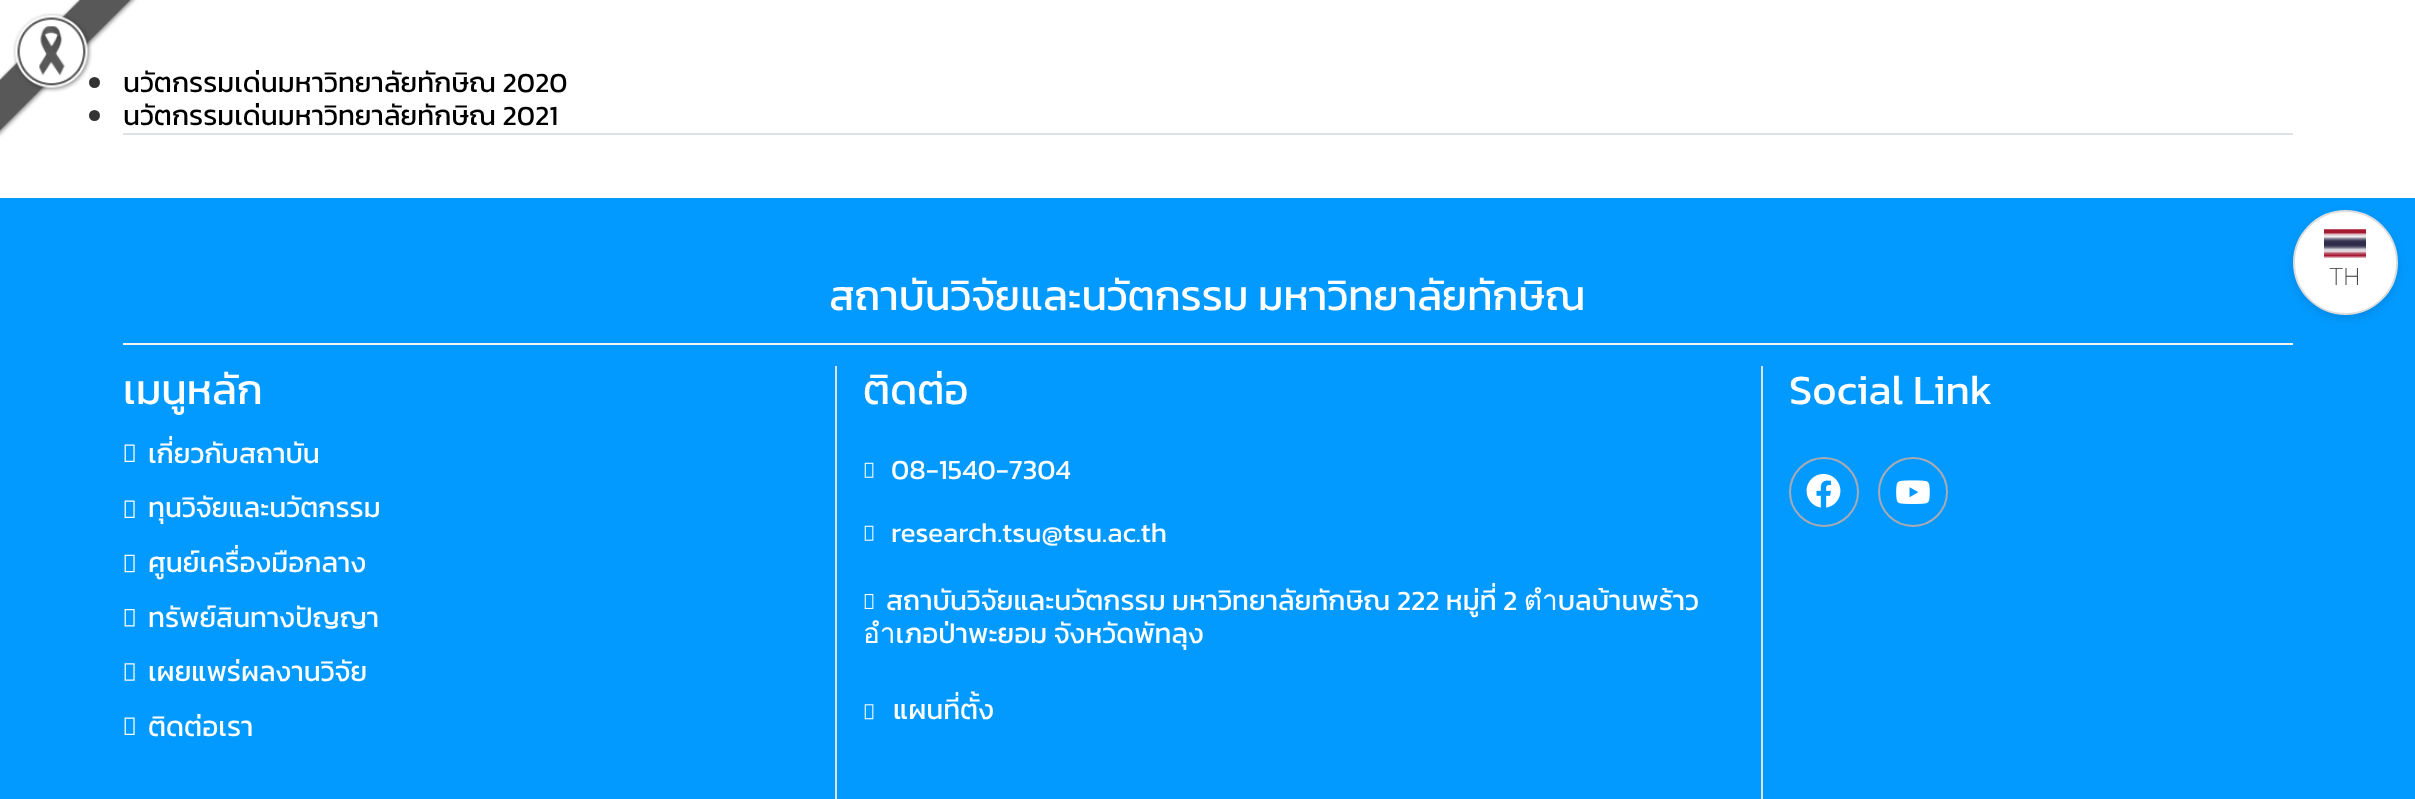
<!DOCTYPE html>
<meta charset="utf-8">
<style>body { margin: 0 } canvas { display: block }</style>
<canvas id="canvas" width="2415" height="799"></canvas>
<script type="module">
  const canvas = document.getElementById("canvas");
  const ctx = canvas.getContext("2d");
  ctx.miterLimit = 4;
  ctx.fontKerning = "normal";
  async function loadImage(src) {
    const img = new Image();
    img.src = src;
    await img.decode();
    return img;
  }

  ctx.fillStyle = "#ffffff";
  ctx.fillRect(0, 0, 2415, 799);
  ctx.fillStyle = "#dee2e6";
  ctx.fillRect(123, 133, 2170, 2);
  ctx.fillStyle = "#333333";
  ctx.beginPath();
  ctx.arc(94.5, 82.5, 5.5, 0, Math.PI * 2);
  ctx.fill();
  ctx.font = "28px Kanit";
  ctx.fillStyle = "#000000";
  ctx.fillText("นวัตกรรมเด่นมหาวิทยาลัยทักษิณ 2020", 123, 92);
  ctx.fillStyle = "#333333";
  ctx.beginPath();
  ctx.arc(94.5, 115.5, 5.5, 0, Math.PI * 2);
  ctx.fill();
  ctx.fillStyle = "#000000";
  ctx.fillText("นวัตกรรมเด่นมหาวิทยาลัยทักษิณ 2021", 123, 125);
  ctx.drawImage(await loadImage("img1.png"), 0, 0, 137, 137);
  ctx.fillStyle = "#039aff";
  ctx.fillRect(0, 198, 2415, 601);
  ctx.fillStyle = "#f3f3f3";
  ctx.fillRect(123, 343, 2170, 2);
  ctx.font = "42px Kanit";
  ctx.fillStyle = "#ffffff";
  ctx.fillText("สถาบันวิจัยและนวัตกรรม มหาวิทยาลัยทักษิณ", 829, 310);
  ctx.fillStyle = "#dee2e6";
  ctx.fillRect(835, 366, 2, 433);
  ctx.fillStyle = "#ffffff";
  ctx.fillText("เมนูหลัก", 123, 404);
  ctx.drawImage(await loadImage("img2.png"), 124, 444, 11, 18);
  ctx.font = "28px Kanit";
  ctx.fillText("เกี่ยวกับสถาบัน", 148, 463);
  ctx.drawImage(await loadImage("img2.png"), 124, 500, 11, 18);
  ctx.fillText("ทุนวิจัยและนวัตกรรม", 148, 517);
  ctx.drawImage(await loadImage("img3.png"), 124, 554, 11, 19);
  ctx.fillText("ศูนย์เครื่องมือกลาง", 148, 572);
  ctx.drawImage(await loadImage("img4.png"), 124, 609, 11, 18);
  ctx.fillText("ทรัพย์สินทางปัญญา", 148, 627);
  ctx.drawImage(await loadImage("img5.png"), 124, 663, 11, 18);
  ctx.fillText("เผยแพร่ผลงานวิจัย", 148, 681);
  ctx.drawImage(await loadImage("img2.png"), 124, 717, 11, 18);
  ctx.fillText("ติดต่อเรา", 148, 736);
  ctx.fillStyle = "#dee2e6";
  ctx.fillRect(1761, 366, 2, 433);
  ctx.font = "42px Kanit";
  ctx.fillStyle = "#ffffff";
  ctx.fillText("ติดต่อ", 863, 404);
  ctx.drawImage(await loadImage("img6.png"), 864, 462, 10, 16);
  ctx.font = "28px Kanit";
  ctx.fillText("08-1540-7304", 891, 479);
  ctx.drawImage(await loadImage("img6.png"), 864, 525, 10, 16);
  ctx.fillText("research.tsu@tsu.ac.th", 891, 542);
  ctx.drawImage(await loadImage("img7.png"), 864, 594, 10, 15);
  ctx.fillText("สถาบันวิจัยและนวัตกรรม มหาวิทยาลัยทักษิณ 222 หมู่ที่ 2 ตำบลบ้านพร้าว", 886, 610);
  ctx.fillText("อำเภอป่าพะยอม จังหวัดพัทลุง", 863, 643);
  ctx.drawImage(await loadImage("img8.png"), 864, 704, 10, 16);
  ctx.fillText("แผนที่ตั้ง", 893, 719);
  ctx.font = "42px Kanit";
  ctx.fillText("Social Link", 1789, 404);
  ctx.beginPath();
  ctx.arc(1824, 492, 34, 0, Math.PI * 2);
  ctx.strokeStyle = "#aaaab3";
  ctx.lineWidth = 2;
  ctx.stroke();
  ctx.drawImage(await loadImage("img9.png"), 1806, 473, 35, 35);
  ctx.beginPath();
  ctx.arc(1913, 492, 34, 0, Math.PI * 2);
  ctx.stroke();
  ctx.drawImage(await loadImage("img10.png"), 1896, 480, 34, 24);
  ctx.fillStyle = "rgba(0, 0, 0, 0.1)";
  ctx.filter = "blur(4.5px)";
  ctx.beginPath();
  ctx.roundRect(2293, 214, 105, 105, 52.5);
  ctx.fill();
  ctx.filter = "none";
  ctx.fillStyle = "#ffffff";
  ctx.beginPath();
  ctx.arc(2345.5, 262.5, 51.5, 0, Math.PI * 2);
  ctx.fill();
  ctx.strokeStyle = "#dddddd";
  ctx.stroke();
  ctx.drawImage(await loadImage("img11.png"), 2324, 229, 42, 29);
  ctx.font = "200 24px Roboto";
  ctx.fillStyle = "#333333";
  ctx.fillText("TH", 2329, 285);
</script>
